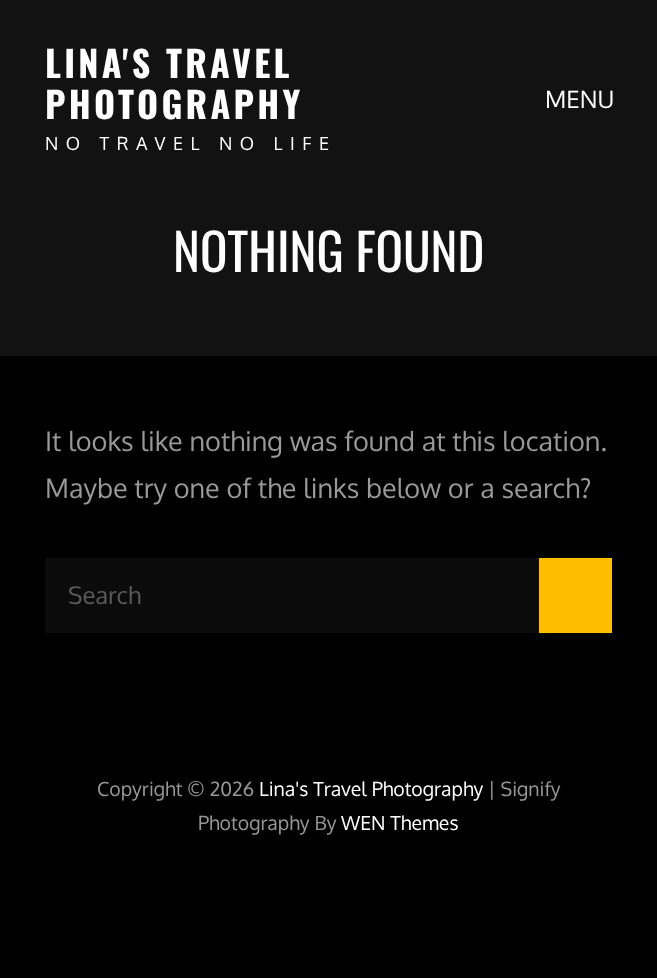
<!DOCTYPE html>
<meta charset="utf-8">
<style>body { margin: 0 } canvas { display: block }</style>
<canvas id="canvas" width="657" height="978"></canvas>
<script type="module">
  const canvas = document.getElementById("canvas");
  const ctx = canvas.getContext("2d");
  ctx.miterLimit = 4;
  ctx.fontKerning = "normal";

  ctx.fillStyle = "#000000";
  ctx.fillRect(0, 0, 657, 978);
  ctx.fillStyle = "#121212";
  ctx.fillRect(0, 0, 657, 356);
  ctx.letterSpacing = "3.25px";
  ctx.font = "bold 36px Oswald";
  ctx.fillStyle = "#ffffff";
  ctx.fillText("LINA'S TRAVEL", 45, 78);
  ctx.fillText("PHOTOGRAPHY", 45, 119);
  ctx.letterSpacing = "7.5px";
  ctx.font = "18px Oxygen";
  ctx.fillText("NO TRAVEL NO LIFE", 45, 150);
  ctx.letterSpacing = "0px";
  ctx.font = "24px Oxygen";
  ctx.fillText("MENU", 545, 108);
  ctx.font = "51px Oswald";
  ctx.fillText("NOTHING FOUND", 173, 272);
  ctx.font = "27px Oxygen";
  ctx.fillStyle = "#999999";
  ctx.fillText("It looks like nothing was found at this location.", 45, 451);
  ctx.fillText("Maybe try one of the links below or a search?", 45, 498);
  ctx.fillStyle = "#0b0b0b";
  ctx.fillRect(45, 558, 494, 75);
  ctx.font = "24px Oxygen";
  ctx.fillStyle = "#5c5c5c";
  ctx.fillText("Search", 68, 604);
  ctx.fillStyle = "#ffbf00";
  ctx.fillRect(539, 558, 73, 75);
  ctx.font = "19.5px Oxygen";
  ctx.fillStyle = "#999999";
  ctx.fillText("Copyright © 2026", 97, 796);
  ctx.fillStyle = "#ffffff";
  ctx.fillText("Lina's Travel Photography", 259, 796);
  ctx.fillStyle = "#999999";
  ctx.fillText("| Signify", 488, 796);
  ctx.fillText("Photography By", 198, 830);
  ctx.fillStyle = "#ffffff";
  ctx.fillText("WEN Themes", 341, 830);
</script>
